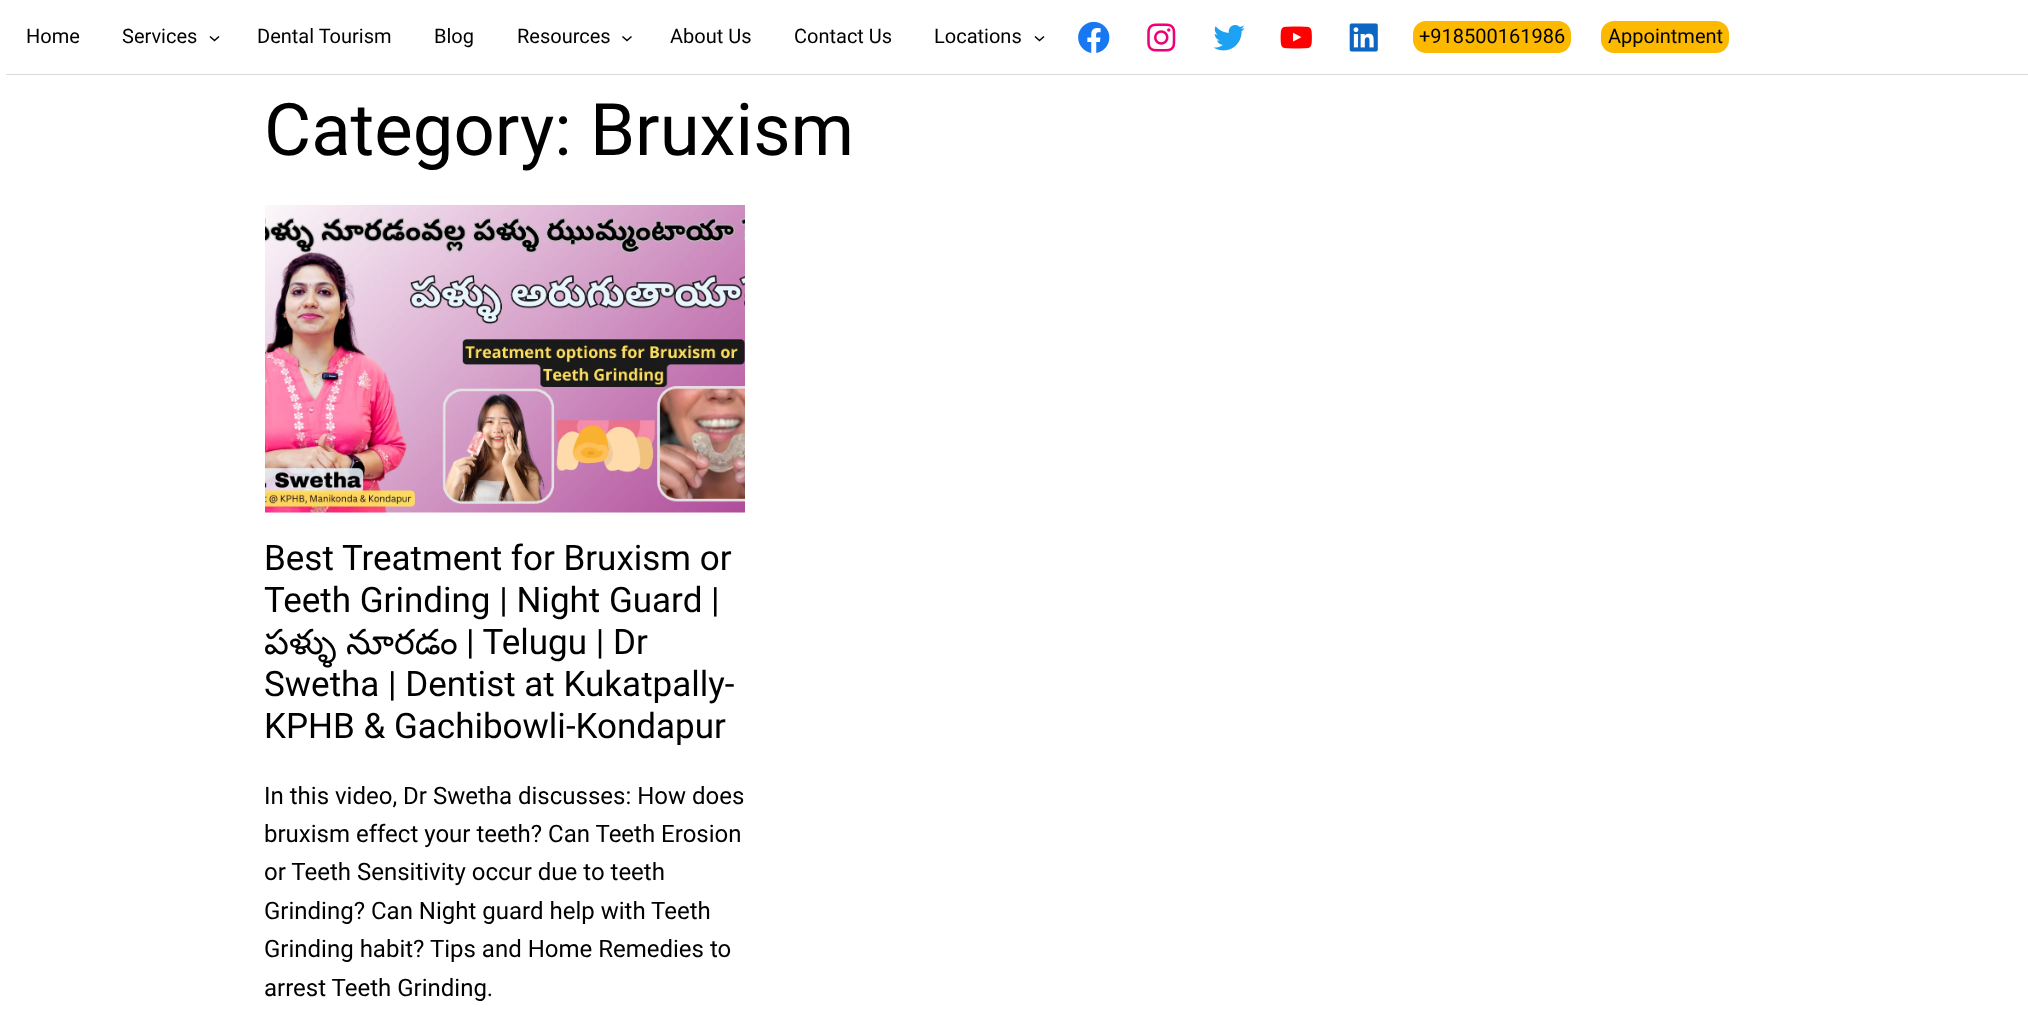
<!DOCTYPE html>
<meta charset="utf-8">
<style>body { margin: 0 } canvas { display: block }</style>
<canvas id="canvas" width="2028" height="1026"></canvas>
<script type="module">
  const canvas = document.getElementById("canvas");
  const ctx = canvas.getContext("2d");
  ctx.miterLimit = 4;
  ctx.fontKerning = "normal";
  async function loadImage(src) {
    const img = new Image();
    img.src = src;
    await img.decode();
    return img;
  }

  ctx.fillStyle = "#ffffff";
  ctx.fillRect(0, 0, 2028, 1026);
  ctx.fillStyle = "#dadada";
  ctx.fillRect(6, 74, 2022, 1);
  ctx.font = "20px Roboto";
  ctx.fillStyle = "#000000";
  ctx.fillText("Home", 26, 43);
  ctx.fillText("Services", 122, 43);
  ctx.beginPath();
  ctx.moveTo(210, 36.5);
  ctx.lineTo(214.5, 40.5);
  ctx.lineTo(219, 36.5);
  ctx.strokeStyle = "#000000";
  ctx.lineWidth = 1.5;
  ctx.stroke();
  ctx.fillText("Dental Tourism", 257, 43);
  ctx.fillText("Blog", 434, 43);
  ctx.fillText("Resources", 517, 43);
  ctx.beginPath();
  ctx.moveTo(622.5, 36.5);
  ctx.lineTo(627, 40.5);
  ctx.lineTo(631.5, 36.5);
  ctx.stroke();
  ctx.fillText("About Us", 670, 43);
  ctx.fillText("Contact Us", 794, 43);
  ctx.fillText("Locations", 934, 43);
  ctx.beginPath();
  ctx.moveTo(1035, 36.5);
  ctx.lineTo(1039.5, 40.5);
  ctx.lineTo(1044, 36.5);
  ctx.stroke();
  ctx.drawImage(await loadImage("img1.png"), 1078, 21, 32, 32);
  ctx.drawImage(await loadImage("img2.png"), 1147, 23, 29, 29);
  ctx.drawImage(await loadImage("img3.png"), 1213, 25, 32, 26);
  ctx.drawImage(await loadImage("img4.png"), 1280, 26, 32, 23);
  ctx.drawImage(await loadImage("img5.png"), 1349, 23, 29, 29);
  ctx.fillStyle = "#fcb900";
  ctx.beginPath();
  ctx.roundRect(1413, 21, 158, 32, 13);
  ctx.fill();
  ctx.fillStyle = "#000000";
  ctx.fillText("+918500161986", 1419, 43);
  ctx.fillStyle = "#fcb900";
  ctx.beginPath();
  ctx.roundRect(1601, 21, 128, 32, 13);
  ctx.fill();
  ctx.fillStyle = "#000000";
  ctx.fillText("Appointment", 1608, 43);
  ctx.font = "72.5px Roboto";
  ctx.fillText("Category: Bruxism", 264, 155);
  ctx.drawImage(await loadImage("img6.png"), 265, 205, 480, 308);
  ctx.font = "35px Roboto";
  ctx.fillText("Best Treatment for Bruxism or", 264, 570);
  ctx.fillText("Teeth Grinding | Night Guard |", 264, 612);
  ctx.font = "35px Noto Sans Telugu";
  ctx.fillText("పళ్ళు", 264, 654);
  ctx.fillText("నూరడం", 346, 654);
  ctx.font = "35px Roboto";
  ctx.fillText("| Telugu | Dr", 466, 654);
  ctx.fillText("Swetha | Dentist at Kukatpally-", 264, 696);
  ctx.fillText("KPHB & Gachibowli-Kondapur", 264, 738);
  ctx.font = "24px Roboto";
  ctx.fillText("In this video, Dr Swetha discusses: How does", 264, 804);
  ctx.fillText("bruxism effect your teeth? Can Teeth Erosion", 264, 842);
  ctx.fillText("or Teeth Sensitivity occur due to teeth", 264, 880);
  ctx.fillText("Grinding? Can Night guard help with Teeth", 264, 919);
  ctx.fillText("Grinding habit? Tips and Home Remedies to", 264, 957);
  ctx.fillText("arrest Teeth Grinding.", 264, 996);
</script>
